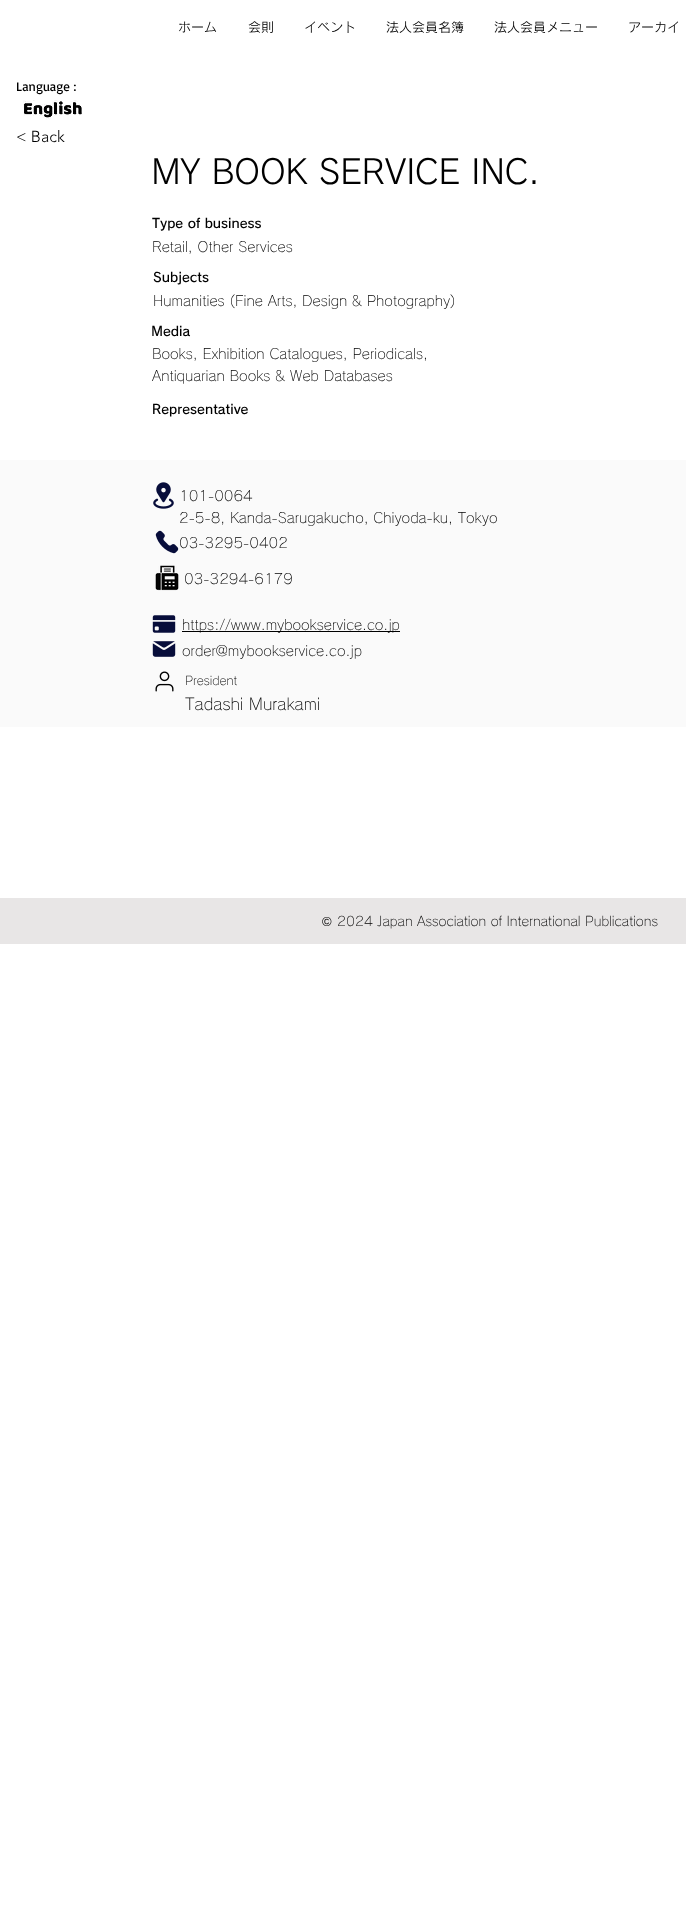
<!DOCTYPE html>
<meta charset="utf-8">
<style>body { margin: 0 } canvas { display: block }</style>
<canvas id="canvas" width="686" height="1928"></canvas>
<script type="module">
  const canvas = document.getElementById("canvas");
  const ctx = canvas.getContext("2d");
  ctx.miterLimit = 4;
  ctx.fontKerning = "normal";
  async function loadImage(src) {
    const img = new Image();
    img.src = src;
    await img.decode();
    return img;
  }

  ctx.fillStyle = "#ffffff";
  ctx.fillRect(0, 0, 686, 1928);
  ctx.font = "500 13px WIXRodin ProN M";
  ctx.fillStyle = "#000000";
  ctx.fillText("ホーム", 178, 32);
  ctx.fillText("会則", 248, 32);
  ctx.fillText("イベント", 304, 32);
  ctx.fillText("法人会員名簿", 386, 32);
  ctx.fillText("法人会員メニュー", 494, 32);
  ctx.fillText("アーカイ", 628, 32);
  ctx.font = "13px Basic";
  ctx.fillText("Language :", 16, 91);
  ctx.drawImage(await loadImage("img1.png"), 23, 100, 59, 20);
  ctx.font = "300 16px 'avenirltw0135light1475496'";
  ctx.fillText("< Back", 16, 142);
  ctx.font = "500 33px WIXRodin ProN M";
  ctx.fillText("MY BOOK SERVICE INC.", 151, 184);
  ctx.font = "600 13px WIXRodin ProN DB";
  ctx.fillText("Type of business", 152, 228);
  ctx.font = "300 14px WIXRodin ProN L";
  ctx.fillText("Retail, Other Services", 152, 252);
  ctx.font = "600 13px WIXRodin ProN DB";
  ctx.fillText("Subjects", 153, 282);
  ctx.font = "300 14px WIXRodin ProN L";
  ctx.fillText("Humanities (Fine Arts, Design & Photography)", 153, 306);
  ctx.font = "600 13px WIXRodin ProN DB";
  ctx.fillText("Media", 151, 336);
  ctx.font = "300 14px WIXRodin ProN L";
  ctx.fillText("Books, Exhibition Catalogues, Periodicals,", 152, 359);
  ctx.fillText("Antiquarian Books & Web Databases", 152, 381);
  ctx.font = "600 13px WIXRodin ProN DB";
  ctx.fillText("Representative", 152, 414);
  ctx.fillStyle = "#fafafa";
  ctx.fillRect(0, 460, 686, 267);
  ctx.drawImage(await loadImage("img2.png"), 153, 482, 21, 27);
  ctx.font = "300 14px WIXRodin ProN L";
  ctx.fillStyle = "#000000";
  ctx.fillText("101-0064", 179, 501);
  ctx.fillText("2-5-8, Kanda-Sarugakucho, Chiyoda-ku, Tokyo", 179, 523);
  ctx.drawImage(await loadImage("img3.png"), 155, 530, 24, 24);
  ctx.fillText("03-3295-0402", 179, 548);
  ctx.drawImage(await loadImage("img4.png"), 155, 565, 24, 26);
  ctx.fillText("03-3294-6179", 184, 584);
  ctx.drawImage(await loadImage("img5.png"), 152, 615, 24, 18);
  ctx.fillRect(182, 631, 218, 1);
  ctx.fillText("https://www.mybookservice.co.jp", 182, 630);
  ctx.drawImage(await loadImage("img6.png"), 152, 641, 24, 16);
  ctx.fillText("order@mybookservice.co.jp", 182, 656);
  ctx.drawImage(await loadImage("img7.png"), 155, 671, 19, 21);
  ctx.font = "300 12px WIXRodin ProN L";
  ctx.fillText("President", 185, 685);
  ctx.font = "300 16px WIXRodin ProN L";
  ctx.fillText("Tadashi Murakami", 185, 710);
  ctx.fillStyle = "#e8e6e6";
  ctx.fillRect(0, 898, 686, 46);
  ctx.font = "13px Liberation Sans";
  ctx.fillStyle = "#000000";
  ctx.fillText("©", 322, 926);
  ctx.font = "300 13px WIXRodin ProN L";
  ctx.fillText("2024 Japan Association of International Publications", 337, 926);
</script>
